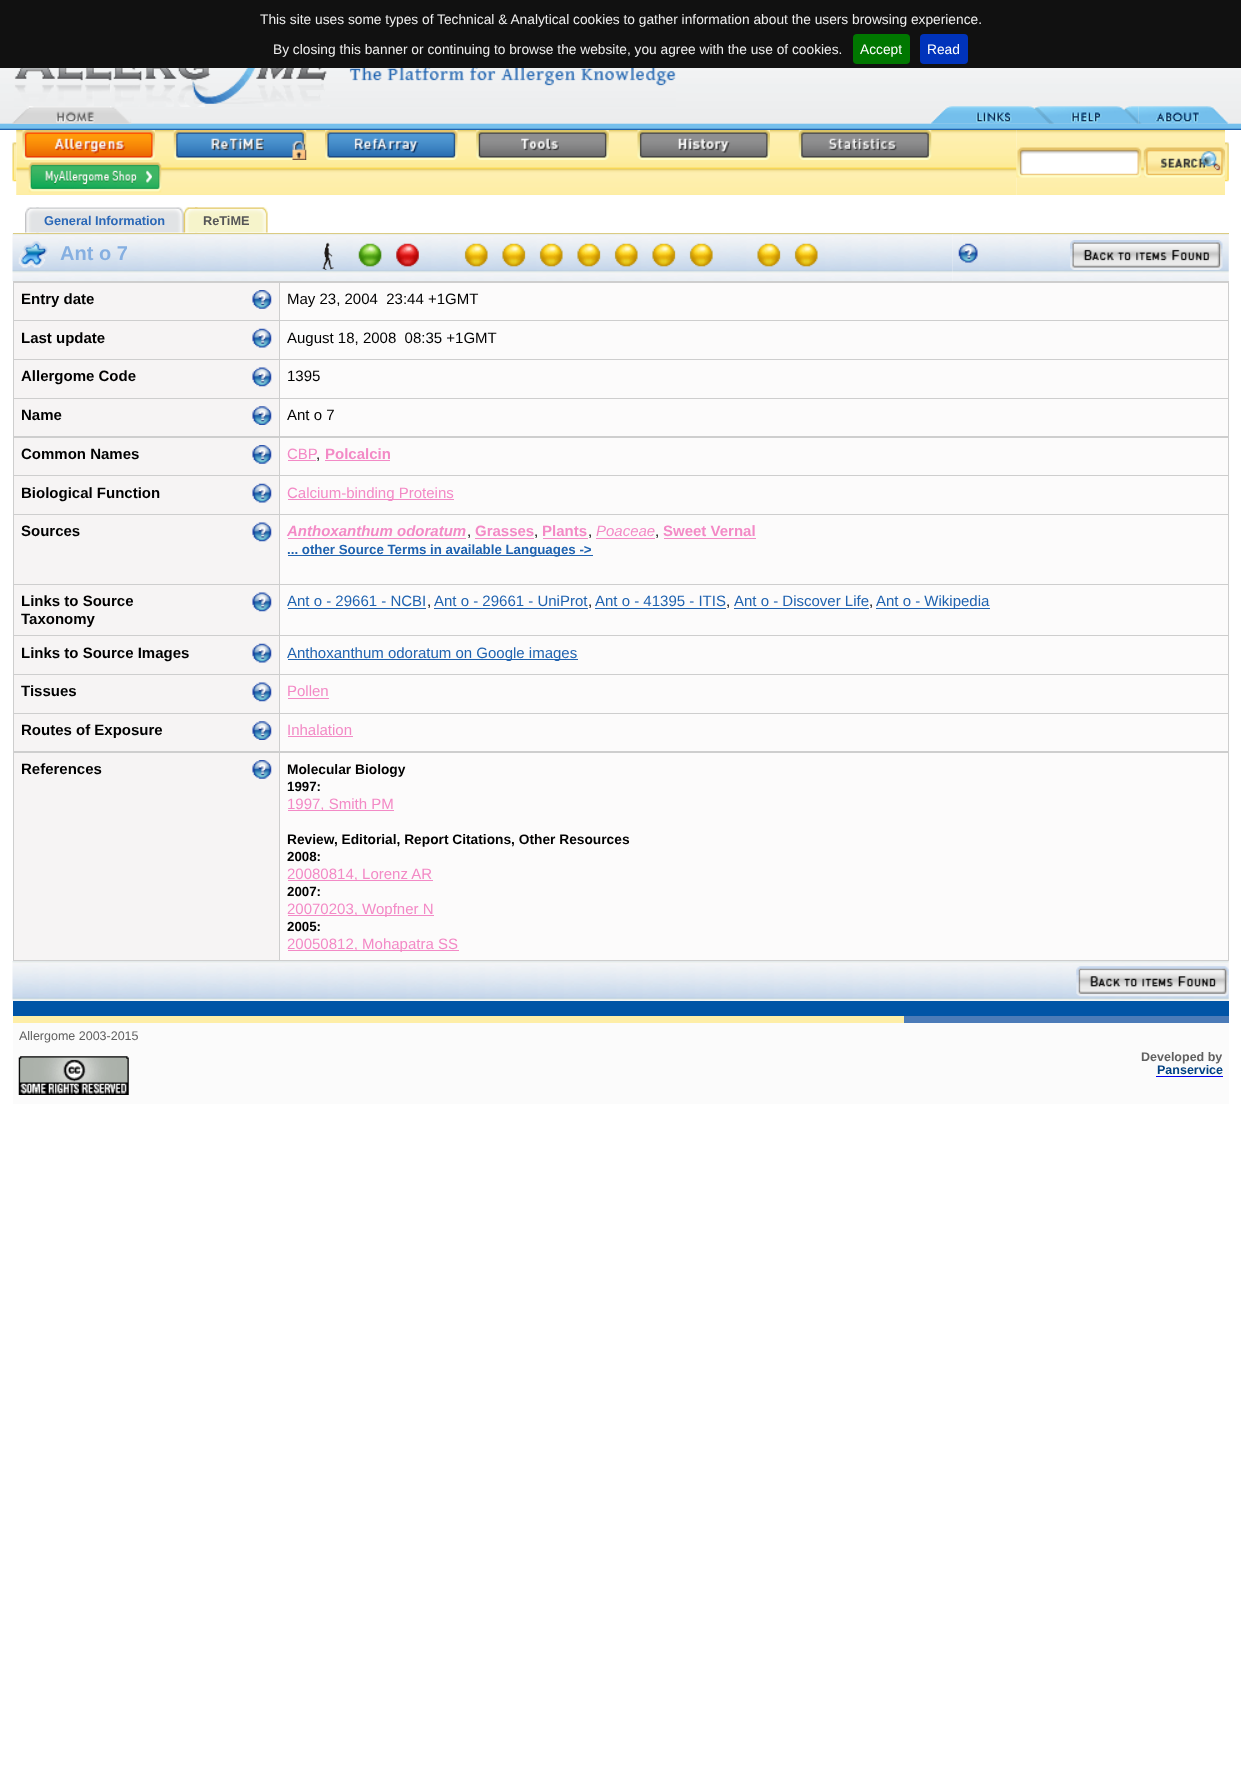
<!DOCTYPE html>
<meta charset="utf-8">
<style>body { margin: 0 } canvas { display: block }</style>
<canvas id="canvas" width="1241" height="1776"></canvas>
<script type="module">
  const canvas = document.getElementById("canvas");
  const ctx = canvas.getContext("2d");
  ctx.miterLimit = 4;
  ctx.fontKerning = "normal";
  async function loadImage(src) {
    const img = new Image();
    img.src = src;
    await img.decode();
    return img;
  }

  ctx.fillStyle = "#ffffff";
  ctx.fillRect(0, 0, 1241, 1776);
  ctx.drawImage(await loadImage("img1.png"), 0, 68, 1241, 62);
  ctx.fillStyle = "#111111";
  ctx.fillRect(0, 0, 1241, 68);
  ctx.font = "13.75px Liberation Sans";
  ctx.fillStyle = "#eeeeee";
  ctx.fillText("This site uses some types of Technical & Analytical cookies to gather information about the users browsing experience.", 260, 24);
  ctx.fillText("By closing this banner or continuing to browse the website, you agree with the use of cookies.", 273, 54);
  ctx.fillStyle = "#007700";
  ctx.beginPath();
  ctx.roundRect(853, 34, 57, 30, 4);
  ctx.fill();
  ctx.fillStyle = "#ffffff";
  ctx.fillText("Accept", 860, 54);
  ctx.fillStyle = "#0033bb";
  ctx.beginPath();
  ctx.roundRect(920, 34, 48, 30, 4);
  ctx.fill();
  ctx.fillStyle = "#ffffff";
  ctx.fillText("Read", 927, 54);
  ctx.drawImage(await loadImage("img2.png"), 14, 68, 662, 39);
  ctx.drawImage(await loadImage("img3.png"), 12, 106, 120, 18);
  ctx.drawImage(await loadImage("img4.png"), 931, 106, 119, 18);
  ctx.drawImage(await loadImage("img5.png"), 1050, 106, 89, 18);
  ctx.drawImage(await loadImage("img6.png"), 1138, 106, 91, 18);
  ctx.drawImage(await loadImage("img8.png"), 16, 130, 1001, 65);
  ctx.drawImage(await loadImage("img7.png"), 12, 142, 5, 40);
  ctx.drawImage(await loadImage("img9.png"), 22, 130, 133, 30);
  ctx.drawImage(await loadImage("img10.png"), 173, 130, 134, 30);
  ctx.drawImage(await loadImage("img11.png"), 325, 130, 133, 30);
  ctx.drawImage(await loadImage("img12.png"), 476, 130, 133, 30);
  ctx.drawImage(await loadImage("img13.png"), 637, 130, 133, 30);
  ctx.drawImage(await loadImage("img14.png"), 798, 130, 134, 30);
  ctx.drawImage(await loadImage("img15.png"), 28, 162, 134, 31);
  ctx.drawImage(await loadImage("img16.png"), 1016, 130, 209, 65);
  ctx.drawImage(await loadImage("img17.png"), 1016, 147, 126, 31);
  ctx.drawImage(await loadImage("img18.png"), 1143, 147, 82, 31);
  ctx.drawImage(await loadImage("img19.png"), 1225, 142, 4, 40);
  ctx.fillStyle = "#e2c763";
  ctx.fillRect(13, 233, 1216, 1);
  ctx.drawImage(await loadImage("img20.png"), 25, 207, 14, 26);
  ctx.drawImage(await loadImage("img21.png"), 36, 207, 148, 26);
  ctx.font = "bold 12.75px Liberation Sans";
  ctx.fillStyle = "#2b68b7";
  ctx.fillText("General Information", 44, 225);
  ctx.drawImage(await loadImage("img22.png"), 183, 207, 15, 26);
  ctx.drawImage(await loadImage("img23.png"), 195, 207, 73, 26);
  ctx.fillStyle = "#565657";
  ctx.fillText("ReTiME", 203, 225);
  ctx.fillStyle = "#fcfbfb";
  ctx.fillRect(13, 234, 1216, 767);
  ctx.drawImage(await loadImage("img24.png"), 12, 233, 183, 49);
  ctx.drawImage(await loadImage("img25.png"), 18, 241, 31, 27);
  ctx.font = "bold 20px Liberation Sans";
  ctx.fillStyle = "#85afe1";
  ctx.fillText("Ant o 7", 60, 260);
  ctx.drawImage(await loadImage("img26.png"), 195, 233, 758, 48);
  ctx.drawImage(await loadImage("img27.png"), 322, 242, 12, 28);
  ctx.drawImage(await loadImage("img28.png"), 358, 243, 24, 24);
  ctx.drawImage(await loadImage("img29.png"), 396, 243, 23, 24);
  ctx.drawImage(await loadImage("img30.png"), 464, 243, 24, 24);
  ctx.drawImage(await loadImage("img31.png"), 502, 243, 24, 24);
  ctx.drawImage(await loadImage("img32.png"), 539, 243, 24, 24);
  ctx.drawImage(await loadImage("img33.png"), 577, 243, 24, 24);
  ctx.drawImage(await loadImage("img34.png"), 614, 243, 24, 24);
  ctx.drawImage(await loadImage("img35.png"), 652, 243, 24, 24);
  ctx.drawImage(await loadImage("img36.png"), 689, 243, 24, 24);
  ctx.drawImage(await loadImage("img35.png"), 757, 243, 24, 24);
  ctx.drawImage(await loadImage("img37.png"), 794, 243, 24, 24);
  ctx.drawImage(await loadImage("img38.png"), 952, 233, 277, 48);
  ctx.drawImage(await loadImage("img39.png"), 958, 243, 20, 20);
  ctx.drawImage(await loadImage("img40.png"), 1070, 240, 153, 30);
  ctx.fillStyle = "#cecece";
  ctx.fillRect(13, 281, 1216, 680);
  ctx.fillStyle = "#f6f4f4";
  ctx.fillRect(14, 283, 265, 37);
  ctx.font = "bold 15px Liberation Sans";
  ctx.fillStyle = "#000000";
  ctx.fillText("Entry date", 21, 304);
  ctx.drawImage(await loadImage("img41.png"), 252, 290, 20, 19);
  ctx.fillStyle = "#fcfbfb";
  ctx.fillRect(280, 283, 948, 37);
  ctx.font = "15px Liberation Sans";
  ctx.fillStyle = "#000000";
  ctx.fillText("May 23, 2004  23:44 +1GMT", 287, 304);
  ctx.fillStyle = "#f6f4f4";
  ctx.fillRect(14, 321, 265, 38);
  ctx.font = "bold 15px Liberation Sans";
  ctx.fillStyle = "#000000";
  ctx.fillText("Last update", 21, 343);
  ctx.drawImage(await loadImage("img42.png"), 252, 328, 20, 20);
  ctx.fillStyle = "#fcfbfb";
  ctx.fillRect(280, 321, 948, 38);
  ctx.font = "15px Liberation Sans";
  ctx.fillStyle = "#000000";
  ctx.fillText("August 18, 2008  08:35 +1GMT", 287, 343);
  ctx.fillStyle = "#f6f4f4";
  ctx.fillRect(14, 360, 265, 38);
  ctx.font = "bold 15px Liberation Sans";
  ctx.fillStyle = "#000000";
  ctx.fillText("Allergome Code", 21, 381);
  ctx.drawImage(await loadImage("img43.png"), 252, 367, 20, 20);
  ctx.fillStyle = "#fcfbfb";
  ctx.fillRect(280, 360, 948, 38);
  ctx.font = "15px Liberation Sans";
  ctx.fillStyle = "#000000";
  ctx.fillText("1395", 287, 381);
  ctx.fillStyle = "#f6f4f4";
  ctx.fillRect(14, 399, 265, 37);
  ctx.font = "bold 15px Liberation Sans";
  ctx.fillStyle = "#000000";
  ctx.fillText("Name", 21, 420);
  ctx.drawImage(await loadImage("img44.png"), 252, 406, 20, 19);
  ctx.fillStyle = "#fcfbfb";
  ctx.fillRect(280, 399, 948, 37);
  ctx.font = "15px Liberation Sans";
  ctx.fillStyle = "#000000";
  ctx.fillText("Ant o 7", 287, 420);
  ctx.fillStyle = "#f6f4f4";
  ctx.fillRect(14, 438, 265, 37);
  ctx.font = "bold 15px Liberation Sans";
  ctx.fillStyle = "#000000";
  ctx.fillText("Common Names", 21, 459);
  ctx.drawImage(await loadImage("img45.png"), 252, 445, 20, 19);
  ctx.fillStyle = "#fcfbfb";
  ctx.fillRect(280, 438, 948, 37);
  ctx.font = "15px Liberation Sans";
  ctx.fillStyle = "#f38ac6";
  ctx.fillText("CBP", 287, 459);
  ctx.fillRect(288, 460, 28, 1);
  ctx.fillStyle = "#000000";
  ctx.fillText(",", 316, 459);
  ctx.font = "bold 15px Liberation Sans";
  ctx.fillStyle = "#f38ac6";
  ctx.fillText("Polcalcin", 325, 459);
  ctx.fillRect(325, 460, 65, 1);
  ctx.fillStyle = "#f6f4f4";
  ctx.fillRect(14, 476, 265, 38);
  ctx.fillStyle = "#000000";
  ctx.fillText("Biological Function", 21, 498);
  ctx.drawImage(await loadImage("img42.png"), 252, 483, 20, 20);
  ctx.fillStyle = "#fcfbfb";
  ctx.fillRect(280, 476, 948, 38);
  ctx.fillStyle = "#f38ac6";
  ctx.fillRect(288, 499, 166, 1);
  ctx.font = "15px Liberation Sans";
  ctx.fillText("Calcium-binding Proteins", 287, 498);
  ctx.fillStyle = "#f6f4f4";
  ctx.fillRect(14, 515, 265, 69);
  ctx.font = "bold 15px Liberation Sans";
  ctx.fillStyle = "#000000";
  ctx.fillText("Sources", 21, 536);
  ctx.drawImage(await loadImage("img43.png"), 252, 522, 20, 20);
  ctx.fillStyle = "#fcfbfb";
  ctx.fillRect(280, 515, 948, 69);
  ctx.font = "italic bold 15px Liberation Sans";
  ctx.fillStyle = "#f38ac6";
  ctx.fillText("Anthoxanthum odoratum", 287, 536);
  ctx.fillRect(288, 538, 178, 1);
  ctx.font = "15px Liberation Sans";
  ctx.fillStyle = "#000000";
  ctx.fillText(",", 467, 536);
  ctx.font = "bold 15px Liberation Sans";
  ctx.fillStyle = "#f38ac6";
  ctx.fillText("Grasses", 475, 536);
  ctx.fillRect(475, 538, 59, 1);
  ctx.font = "15px Liberation Sans";
  ctx.fillStyle = "#000000";
  ctx.fillText(",", 534, 536);
  ctx.font = "bold 15px Liberation Sans";
  ctx.fillStyle = "#f38ac6";
  ctx.fillText("Plants", 542, 536);
  ctx.fillRect(543, 538, 45, 1);
  ctx.font = "15px Liberation Sans";
  ctx.fillStyle = "#000000";
  ctx.fillText(",", 588, 536);
  ctx.font = "italic 15px Liberation Sans";
  ctx.fillStyle = "#f38ac6";
  ctx.fillText("Poaceae", 596, 536);
  ctx.fillRect(596, 538, 59, 1);
  ctx.font = "15px Liberation Sans";
  ctx.fillStyle = "#000000";
  ctx.fillText(",", 655, 536);
  ctx.font = "bold 15px Liberation Sans";
  ctx.fillStyle = "#f38ac6";
  ctx.fillText("Sweet Vernal", 663, 536);
  ctx.fillRect(664, 538, 92, 1);
  ctx.fillStyle = "#2063b0";
  ctx.fillRect(288, 555, 305, 1);
  ctx.font = "bold 13.3px Liberation Sans";
  ctx.fillText("... other Source Terms in available Languages ->", 287, 554);
  ctx.fillStyle = "#f6f4f4";
  ctx.fillRect(14, 585, 265, 50);
  ctx.font = "bold 15px Liberation Sans";
  ctx.fillStyle = "#000000";
  ctx.fillText("Links to Source", 21, 606);
  ctx.drawImage(await loadImage("img43.png"), 252, 592, 20, 20);
  ctx.fillText("Taxonomy", 21, 624);
  ctx.fillStyle = "#fcfbfb";
  ctx.fillRect(280, 585, 948, 50);
  ctx.font = "15px Liberation Sans";
  ctx.fillStyle = "#2063b0";
  ctx.fillText("Ant o - 29661 - NCBI", 287, 606);
  ctx.fillRect(288, 608, 138, 1);
  ctx.fillStyle = "#000000";
  ctx.fillText(",", 427, 606);
  ctx.fillStyle = "#2063b0";
  ctx.fillText("Ant o - 29661 - UniProt", 434, 606);
  ctx.fillRect(434, 608, 154, 1);
  ctx.fillStyle = "#000000";
  ctx.fillText(",", 588, 606);
  ctx.fillStyle = "#2063b0";
  ctx.fillText("Ant o - 41395 - ITIS", 595, 606);
  ctx.fillRect(595, 608, 131, 1);
  ctx.fillStyle = "#000000";
  ctx.fillText(",", 726, 606);
  ctx.fillStyle = "#2063b0";
  ctx.fillText("Ant o - Discover Life", 734, 606);
  ctx.fillRect(734, 608, 135, 1);
  ctx.fillStyle = "#000000";
  ctx.fillText(",", 869, 606);
  ctx.fillStyle = "#2063b0";
  ctx.fillRect(876, 608, 114, 1);
  ctx.fillText("Ant o - Wikipedia", 876, 606);
  ctx.fillStyle = "#f6f4f4";
  ctx.fillRect(14, 636, 265, 38);
  ctx.font = "bold 15px Liberation Sans";
  ctx.fillStyle = "#000000";
  ctx.fillText("Links to Source Images", 21, 658);
  ctx.drawImage(await loadImage("img42.png"), 252, 643, 20, 20);
  ctx.fillStyle = "#fcfbfb";
  ctx.fillRect(280, 636, 948, 38);
  ctx.fillStyle = "#2063b0";
  ctx.fillRect(288, 659, 290, 1);
  ctx.font = "15px Liberation Sans";
  ctx.fillText("Anthoxanthum odoratum on Google images", 287, 658);
  ctx.fillStyle = "#f6f4f4";
  ctx.fillRect(14, 675, 265, 38);
  ctx.font = "bold 15px Liberation Sans";
  ctx.fillStyle = "#000000";
  ctx.fillText("Tissues", 21, 696);
  ctx.drawImage(await loadImage("img43.png"), 252, 682, 20, 20);
  ctx.fillStyle = "#fcfbfb";
  ctx.fillRect(280, 675, 948, 38);
  ctx.font = "15px Liberation Sans";
  ctx.fillStyle = "#f38ac6";
  ctx.fillText("Pollen", 287, 696);
  ctx.fillRect(288, 698, 41, 1);
  ctx.fillStyle = "#f6f4f4";
  ctx.fillRect(14, 714, 265, 37);
  ctx.font = "bold 15px Liberation Sans";
  ctx.fillStyle = "#000000";
  ctx.fillText("Routes of Exposure", 21, 735);
  ctx.drawImage(await loadImage("img44.png"), 252, 721, 20, 19);
  ctx.fillStyle = "#fcfbfb";
  ctx.fillRect(280, 714, 948, 37);
  ctx.font = "15px Liberation Sans";
  ctx.fillStyle = "#f38ac6";
  ctx.fillText("Inhalation", 287, 735);
  ctx.fillRect(288, 736, 65, 1);
  ctx.fillStyle = "#f6f4f4";
  ctx.fillRect(14, 753, 265, 207);
  ctx.font = "bold 15px Liberation Sans";
  ctx.fillStyle = "#000000";
  ctx.fillText("References", 21, 774);
  ctx.drawImage(await loadImage("img45.png"), 252, 760, 20, 19);
  ctx.fillStyle = "#fcfbfb";
  ctx.fillRect(280, 753, 948, 207);
  ctx.font = "bold 13.75px Liberation Sans";
  ctx.fillStyle = "#000000";
  ctx.fillText("Molecular Biology", 287, 774);
  ctx.font = "bold 13.3px Liberation Sans";
  ctx.fillText("1997:", 287, 791);
  ctx.fillStyle = "#f38ac6";
  ctx.fillRect(288, 810, 106, 1);
  ctx.font = "15px Liberation Sans";
  ctx.fillText("1997, Smith PM", 287, 809);
  ctx.font = "bold 13.75px Liberation Sans";
  ctx.fillStyle = "#000000";
  ctx.fillText("Review, Editorial, Report Citations, Other Resources", 287, 844);
  ctx.font = "bold 13.3px Liberation Sans";
  ctx.fillText("2008:", 287, 861);
  ctx.fillStyle = "#f38ac6";
  ctx.fillRect(288, 880, 145, 1);
  ctx.font = "15px Liberation Sans";
  ctx.fillText("20080814, Lorenz AR", 287, 879);
  ctx.font = "bold 13.3px Liberation Sans";
  ctx.fillStyle = "#000000";
  ctx.fillText("2007:", 287, 896);
  ctx.fillStyle = "#f38ac6";
  ctx.fillRect(288, 915, 146, 1);
  ctx.font = "15px Liberation Sans";
  ctx.fillText("20070203, Wopfner N", 287, 914);
  ctx.font = "bold 13.3px Liberation Sans";
  ctx.fillStyle = "#000000";
  ctx.fillText("2005:", 287, 931);
  ctx.fillStyle = "#f38ac6";
  ctx.fillRect(288, 950, 171, 1);
  ctx.font = "15px Liberation Sans";
  ctx.fillText("20050812, Mohapatra SS", 287, 949);
  ctx.drawImage(await loadImage("img46.png"), 12, 961, 1217, 40);
  ctx.drawImage(await loadImage("img47.png"), 1076, 966, 153, 31);
  ctx.fillStyle = "#0054a6";
  ctx.fillRect(13, 1001, 1216, 15);
  ctx.fillStyle = "#fbfbfb";
  ctx.fillRect(13, 1023, 1216, 81);
  ctx.fillStyle = "#feeea7";
  ctx.fillRect(13, 1016, 891, 7);
  ctx.font = "12.5px Liberation Sans";
  ctx.fillStyle = "#606060";
  ctx.fillText("Allergome 2003-2015", 19, 1040);
  ctx.drawImage(await loadImage("img48.png"), 18, 1056, 111, 39);
  ctx.fillStyle = "#4b7bb8";
  ctx.fillRect(904, 1016, 325, 7);
  ctx.font = "bold 12.5px Liberation Sans";
  ctx.fillStyle = "#606060";
  ctx.fillText("Developed by", 1141, 1061);
  ctx.fillStyle = "#004080";
  ctx.fillText("Panservice", 1157, 1074);
  ctx.fillStyle = "#0000ee";
  ctx.fillRect(1156, 1076, 67, 1);
</script>
